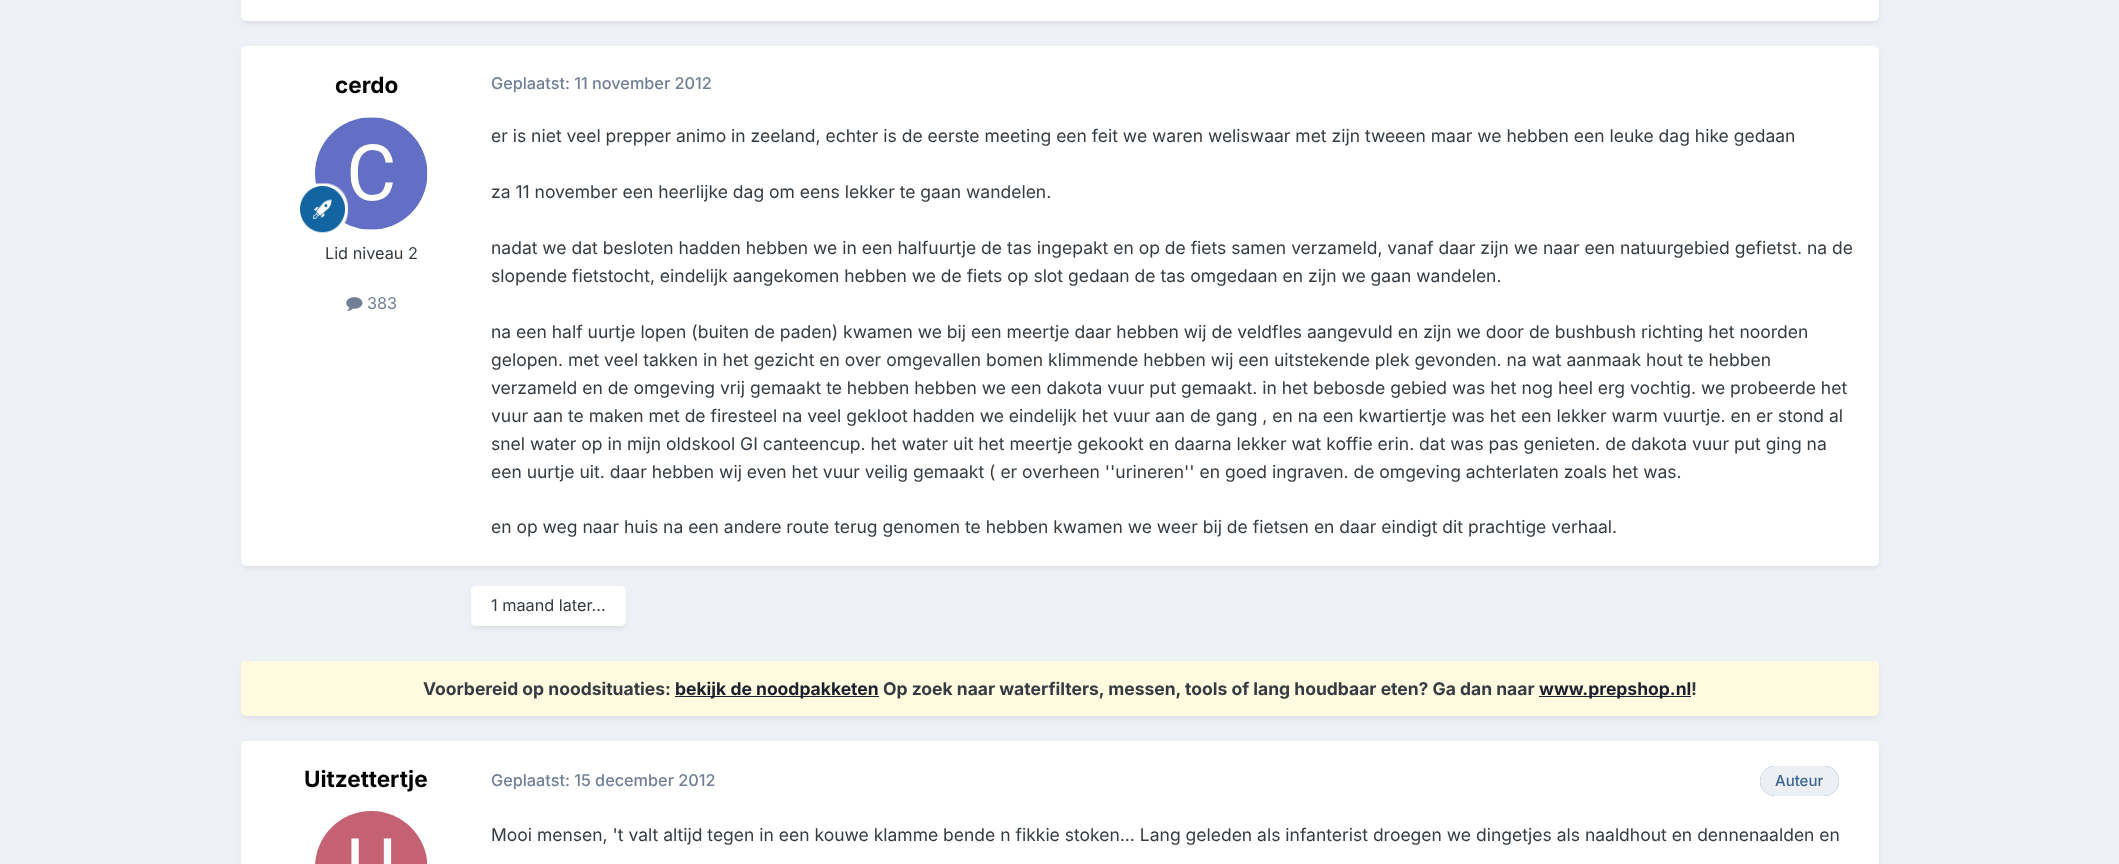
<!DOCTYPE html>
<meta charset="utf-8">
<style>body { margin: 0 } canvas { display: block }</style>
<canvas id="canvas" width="2119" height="864"></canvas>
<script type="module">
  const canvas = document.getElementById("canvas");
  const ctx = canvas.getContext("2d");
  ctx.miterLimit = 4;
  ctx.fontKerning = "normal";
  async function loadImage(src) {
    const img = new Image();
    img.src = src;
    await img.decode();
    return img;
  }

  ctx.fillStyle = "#edf0f4";
  ctx.fillRect(0, 0, 2119, 864);
  ctx.fillStyle = "rgba(45, 55, 72, 0.1)";
  ctx.filter = "blur(2.5px)";
  ctx.beginPath();
  ctx.roundRect(243, -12, 1635, 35, 4);
  ctx.fill();
  ctx.filter = "none";
  ctx.fillStyle = "#ffffff";
  ctx.beginPath();
  ctx.roundRect(241, -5, 1638, 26, 5);
  ctx.fill();
  ctx.fillStyle = "rgba(45, 55, 72, 0.1)";
  ctx.filter = "blur(2.5px)";
  ctx.beginPath();
  ctx.roundRect(243, 50, 1635, 518, 4);
  ctx.fill();
  ctx.filter = "none";
  ctx.fillStyle = "#ffffff";
  ctx.beginPath();
  ctx.roundRect(241, 46, 1638, 520, 5);
  ctx.fill();
  ctx.font = "bold 22.5px Inter";
  ctx.fillStyle = "#000000";
  ctx.fillText("cerdo", 335, 93);
  ctx.drawImage(await loadImage("img1.png"), 315, 117, 113, 113);
  ctx.drawImage(await loadImage("img2.png"), 300, 183, 48, 50);
  ctx.font = "16.25px Inter";
  ctx.fillStyle = "#353c41";
  ctx.fillText("Lid niveau 2", 325, 259);
  ctx.drawImage(await loadImage("img3.png"), 346, 297, 17, 14);
  ctx.fillStyle = "#718096";
  ctx.fillText("383", 367, 309);
  ctx.font = "500 16.25px Inter";
  ctx.fillText("Geplaatst: 11 november 2012", 491, 89);
  ctx.font = "17.5px Inter";
  ctx.fillStyle = "#353c41";
  ctx.fillText("er is niet veel prepper animo in zeeland, echter is de eerste meeting een feit we waren weliswaar met zijn tweeen maar we hebben een leuke dag hike gedaan", 491, 142);
  ctx.fillText("za 11 november een heerlijke dag om eens lekker te gaan wandelen.", 491, 198);
  ctx.fillText("nadat we dat besloten hadden hebben we in een halfuurtje de tas ingepakt en op de fiets samen verzameld, vanaf daar zijn we naar een natuurgebied gefietst. na de", 491, 254);
  ctx.fillText("slopende fietstocht, eindelijk aangekomen hebben we de fiets op slot gedaan de tas omgedaan en zijn we gaan wandelen.", 491, 282);
  ctx.fillText("na een half uurtje lopen (buiten de paden) kwamen we bij een meertje daar hebben wij de veldfles aangevuld en zijn we door de bushbush richting het noorden", 491, 338);
  ctx.fillText("gelopen. met veel takken in het gezicht en over omgevallen bomen klimmende hebben wij een uitstekende plek gevonden. na wat aanmaak hout te hebben", 491, 366);
  ctx.fillText("verzameld en de omgeving vrij gemaakt te hebben hebben we een dakota vuur put gemaakt. in het bebosde gebied was het nog heel erg vochtig. we probeerde het", 491, 394);
  ctx.fillText("vuur aan te maken met de firesteel na veel gekloot hadden we eindelijk het vuur aan de gang , en na een kwartiertje was het een lekker warm vuurtje. en er stond al", 491, 422);
  ctx.fillText("snel water op in mijn oldskool GI canteencup. het water uit het meertje gekookt en daarna lekker wat koffie erin. dat was pas genieten. de dakota vuur put ging na", 491, 450);
  ctx.fillText("een uurtje uit. daar hebben wij even het vuur veilig gemaakt ( er overheen ''urineren'' en goed ingraven. de omgeving achterlaten zoals het was.", 491, 478);
  ctx.fillText("en op weg naar huis na een andere route terug genomen te hebben kwamen we weer bij de fietsen en daar eindigt dit prachtige verhaal.", 491, 533);
  ctx.fillStyle = "rgba(45, 55, 72, 0.1)";
  ctx.filter = "blur(2.5px)";
  ctx.beginPath();
  ctx.roundRect(473, 590, 152, 38, 4);
  ctx.fill();
  ctx.filter = "none";
  ctx.fillStyle = "#ffffff";
  ctx.beginPath();
  ctx.roundRect(471, 586, 155, 40, 5);
  ctx.fill();
  ctx.font = "16.25px Inter";
  ctx.fillStyle = "#353c41";
  ctx.fillText("1 maand later...", 491, 611);
  ctx.fillStyle = "rgba(45, 55, 72, 0.1)";
  ctx.filter = "blur(2.5px)";
  ctx.beginPath();
  ctx.roundRect(243, 665, 1635, 53, 4);
  ctx.fill();
  ctx.filter = "none";
  ctx.fillStyle = "#fffae0";
  ctx.beginPath();
  ctx.roundRect(241, 661, 1638, 55, 5);
  ctx.fill();
  ctx.font = "bold 17.5px Inter";
  ctx.fillStyle = "#353c41";
  ctx.fillText("Voorbereid op noodsituaties:", 423, 695);
  ctx.fillStyle = "#1a202c";
  ctx.fillRect(675, 696, 204, 1);
  ctx.fillText("bekijk de noodpakketen", 675, 695);
  ctx.fillStyle = "#353c41";
  ctx.fillText("Op zoek naar waterfilters, messen, tools of lang houdbaar eten? Ga dan naar", 883, 695);
  ctx.fillStyle = "#1a202c";
  ctx.fillRect(1539, 696, 152, 1);
  ctx.fillText("www.prepshop.nl", 1539, 695);
  ctx.fillStyle = "#353c41";
  ctx.fillText("!", 1691, 695);
  ctx.fillStyle = "rgba(45, 55, 72, 0.1)";
  ctx.filter = "blur(2.5px)";
  ctx.beginPath();
  ctx.roundRect(243, 745, 1635, 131, 4);
  ctx.fill();
  ctx.filter = "none";
  ctx.fillStyle = "#ffffff";
  ctx.beginPath();
  ctx.roundRect(241, 741, 1638, 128, 5);
  ctx.fill();
  ctx.font = "bold 22.5px Inter";
  ctx.fillStyle = "#000000";
  ctx.fillText("Uitzettertje", 304, 787);
  ctx.drawImage(await loadImage("img4.png"), 315, 811, 113, 53);
  ctx.font = "500 16.25px Inter";
  ctx.fillStyle = "#718096";
  ctx.fillText("Geplaatst: 15 december 2012", 491, 786);
  ctx.fillStyle = "#3d6594";
  ctx.beginPath();
  ctx.roundRect(1760, 766, 79, 30, 15);
  ctx.fill();
  ctx.fillStyle = "rgba(255, 255, 255, 0.9)";
  ctx.beginPath();
  ctx.roundRect(1760, 766, 79, 30, 15);
  ctx.fill();
  ctx.font = "500 15px Inter";
  ctx.fillStyle = "#3d6594";
  ctx.fillText("Auteur", 1775, 786);
  ctx.font = "17.5px Inter";
  ctx.fillStyle = "#353c41";
  ctx.fillText("Mooi mensen, 't valt altijd tegen in een kouwe klamme bende n fikkie stoken... Lang geleden als infanterist droegen we dingetjes als naaldhout en dennenaalden en", 491, 841);
</script>
